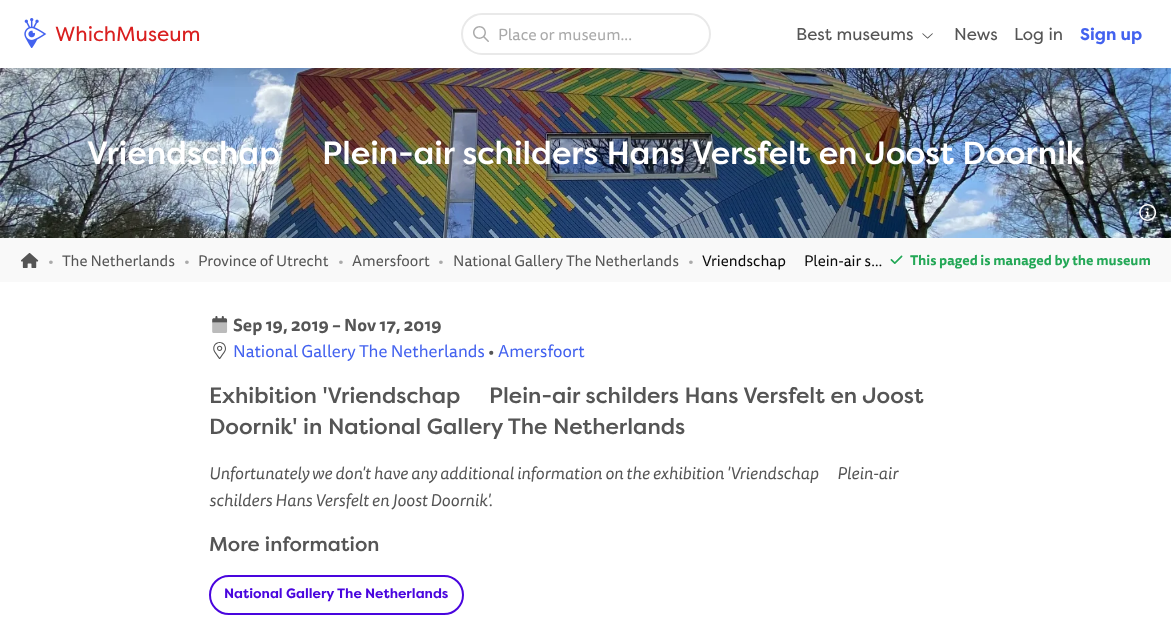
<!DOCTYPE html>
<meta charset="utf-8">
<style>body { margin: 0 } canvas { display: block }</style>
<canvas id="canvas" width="1171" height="640"></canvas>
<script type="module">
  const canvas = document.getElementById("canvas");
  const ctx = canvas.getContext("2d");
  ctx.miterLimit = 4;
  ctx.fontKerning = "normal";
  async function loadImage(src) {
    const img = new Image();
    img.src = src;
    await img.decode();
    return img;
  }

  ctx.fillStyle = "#ffffff";
  ctx.fillRect(0, 0, 1171, 640);
  ctx.drawImage(await loadImage("img4.png"), 0, 68, 1171, 170);
  ctx.save();
  ctx.beginPath();
  ctx.rect(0, 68, 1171, 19);
  ctx.clip();
  ctx.fillStyle = "rgba(0, 0, 0, 0.2)";
  ctx.filter = "blur(15px)";
  ctx.beginPath();
  ctx.rect(0, 0, 1171, 68);
  ctx.fill();
  ctx.filter = "none";
  ctx.restore();
  ctx.drawImage(await loadImage("img1.png"), 24, 18, 23, 30);
  ctx.font = "20.5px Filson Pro";
  ctx.fillStyle = "#d91f1f";
  ctx.fillText("WhichMuseum", 55, 41);
  ctx.beginPath();
  ctx.roundRect(462, 14, 248, 40, 20);
  ctx.strokeStyle = "#e9e9e9";
  ctx.lineWidth = 2;
  ctx.stroke();
  ctx.drawImage(await loadImage("img2.png"), 473, 26, 16, 16);
  ctx.font = "16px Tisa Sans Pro";
  ctx.fillStyle = "#aaaaaa";
  ctx.fillText("Place or museum...", 498, 40);
  ctx.font = "17px Filson Pro";
  ctx.fillStyle = "#555555";
  ctx.fillText("Best museums", 796, 40);
  ctx.drawImage(await loadImage("img3.png"), 922, 33, 11, 6);
  ctx.fillText("News", 954, 40);
  ctx.fillText("Log in", 1014, 40);
  ctx.font = "bold 17px Filson Pro";
  ctx.fillStyle = "#4362ef";
  ctx.fillText("Sign up", 1080, 40);
  ctx.font = "500 32px Filson Pro";
  ctx.fillStyle = "#ffffff";
  ctx.fillText("Vriendschap", 87, 164);
  ctx.fillText("Plein-air schilders Hans Versfelt en Joost Doornik", 322, 164);
  ctx.drawImage(await loadImage("img5.png"), 1139, 204, 18, 17);
  ctx.fillStyle = "#f9f9f9";
  ctx.fillRect(0, 238, 1171, 44);
  ctx.drawImage(await loadImage("img6.png"), 21, 253, 18, 15);
  ctx.font = "15.25px Tisa Sans Pro";
  ctx.fillStyle = "#aaaaaa";
  ctx.fillText("•", 48, 266);
  ctx.fillStyle = "#555555";
  ctx.fillText("The Netherlands", 62, 266);
  ctx.fillStyle = "#aaaaaa";
  ctx.fillText("•", 184, 266);
  ctx.fillStyle = "#555555";
  ctx.fillText("Province of Utrecht", 198, 266);
  ctx.fillStyle = "#aaaaaa";
  ctx.fillText("•", 338, 266);
  ctx.fillStyle = "#555555";
  ctx.fillText("Amersfoort", 352, 266);
  ctx.fillStyle = "#aaaaaa";
  ctx.fillText("•", 438, 266);
  ctx.fillStyle = "#555555";
  ctx.fillText("National Gallery The Netherlands", 453, 266);
  ctx.fillStyle = "#aaaaaa";
  ctx.fillText("•", 688, 266);
  ctx.fillStyle = "#0a0a0a";
  ctx.fillText("Vriendschap", 702, 266);
  ctx.fillText("Plein-air s…", 804, 266);
  ctx.drawImage(await loadImage("img7.png"), 890, 255, 13, 9);
  ctx.font = "bold 13.6px Tisa Sans Pro";
  ctx.fillStyle = "#24a857";
  ctx.fillText("This paged is managed by the museum", 910, 265);
  ctx.drawImage(await loadImage("img8.png"), 212, 316, 16, 17);
  ctx.font = "bold 17px Tisa Sans Pro";
  ctx.fillStyle = "#555555";
  ctx.fillText("Sep 19, 2019 – Nov 17, 2019", 233, 331);
  ctx.drawImage(await loadImage("img9.png"), 213, 342, 13, 17);
  ctx.font = "17px Tisa Sans Pro";
  ctx.fillStyle = "#4362ef";
  ctx.fillText("National Gallery The Netherlands", 233, 357);
  ctx.fillStyle = "#555555";
  ctx.fillText("•", 488, 357);
  ctx.fillStyle = "#4362ef";
  ctx.fillText("Amersfoort", 498, 357);
  ctx.font = "500 22px Filson Pro";
  ctx.fillStyle = "#555555";
  ctx.fillText("Exhibition 'Vriendschap", 209, 403);
  ctx.fillText("Plein-air schilders Hans Versfelt en Joost", 489, 403);
  ctx.fillText("Doornik' in National Gallery The Netherlands", 209, 434);
  ctx.font = "italic 17px Tisa Sans Pro";
  ctx.fillText("Unfortunately we don't have any additional information on the exhibition 'Vriendschap", 209, 479);
  ctx.fillText("Plein-air", 837, 479);
  ctx.fillText("schilders Hans Versfelt en Joost Doornik'.", 209, 506);
  ctx.font = "500 20px Filson Pro";
  ctx.fillText("More information", 209, 551);
  ctx.beginPath();
  ctx.roundRect(210, 576, 253, 38, 19);
  ctx.strokeStyle = "#4905de";
  ctx.stroke();
  ctx.font = "bold 13.6px Filson Pro";
  ctx.fillStyle = "#4905de";
  ctx.fillText("National Gallery The Netherlands", 224, 598);
</script>
